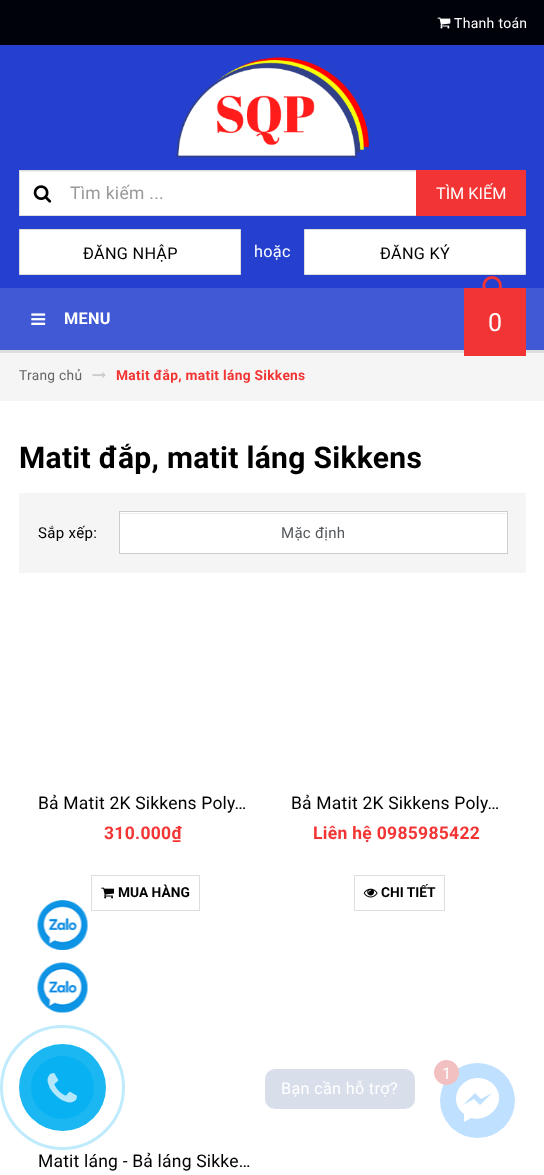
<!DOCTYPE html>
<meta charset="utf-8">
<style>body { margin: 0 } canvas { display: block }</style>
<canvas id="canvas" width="544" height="1175"></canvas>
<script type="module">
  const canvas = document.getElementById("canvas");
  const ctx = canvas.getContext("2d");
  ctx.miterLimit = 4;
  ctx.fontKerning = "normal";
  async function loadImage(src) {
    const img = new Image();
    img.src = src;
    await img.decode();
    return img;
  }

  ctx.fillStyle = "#ffffff";
  ctx.fillRect(0, 0, 544, 1175);
  ctx.fillStyle = "#253fce";
  ctx.fillRect(0, 45, 544, 243);
  ctx.fillStyle = "#000209";
  ctx.fillRect(0, 0, 544, 45);
  ctx.drawImage(await loadImage("img1.png"), 437, 17, 14, 12);
  ctx.letterSpacing = "0.3px";
  ctx.font = "14px Roboto";
  ctx.fillStyle = "#ffffff";
  ctx.fillText("Thanh toán", 454, 28);
  ctx.drawImage(await loadImage("img2.png"), 176, 57, 193, 101);
  ctx.fillRect(20, 172, 396, 43);
  ctx.fillStyle = "#ececec";
  ctx.fillRect(20, 171, 396, 1);
  ctx.strokeStyle = "#dedede";
  ctx.strokeRect(19.5, 170.5, 398, 45);
  ctx.drawImage(await loadImage("img3.png"), 33, 185, 19, 18);
  ctx.font = "17.5px Roboto";
  ctx.fillStyle = "#999999";
  ctx.fillText("Tìm kiếm ...", 70, 199);
  ctx.fillStyle = "#f23534";
  ctx.fillRect(416, 170, 110, 46);
  ctx.letterSpacing = "0px";
  ctx.font = "16.25px Roboto";
  ctx.fillStyle = "#ffffff";
  ctx.fillText("TÌM KIẾM", 436, 199);
  ctx.beginPath();
  ctx.rect(19.5, 229.5, 221, 45);
  ctx.fill();
  ctx.stroke();
  ctx.letterSpacing = "0.3px";
  ctx.fillStyle = "#000000";
  ctx.fillText("ĐĂNG NHẬP", 83, 259);
  ctx.fillStyle = "#ffffff";
  ctx.fillText("hoặc", 254, 257);
  ctx.beginPath();
  ctx.rect(304.5, 229.5, 221, 45);
  ctx.fill();
  ctx.stroke();
  ctx.fillStyle = "#000000";
  ctx.fillText("ĐĂNG KÝ", 380, 259);
  ctx.fillStyle = "#dedede";
  ctx.fillRect(0, 350, 544, 3);
  ctx.fillStyle = "#4259d5";
  ctx.fillRect(0, 288, 544, 62);
  ctx.drawImage(await loadImage("img4.png"), 31, 313, 15, 12);
  ctx.font = "bold 16.25px Roboto";
  ctx.fillStyle = "#ffffff";
  ctx.fillText("MENU", 64, 324);
  ctx.fillStyle = "#f5f5f5";
  ctx.fillRect(0, 353, 544, 48);
  ctx.fillStyle = "#f23534";
  ctx.fillRect(464, 288, 62, 68);
  ctx.drawImage(await loadImage("img5.png"), 482, 276, 20, 12);
  ctx.font = "25px Roboto";
  ctx.fillStyle = "#ffffff";
  ctx.fillText("0", 488, 331);
  ctx.font = "13.75px Roboto";
  ctx.fillStyle = "#666666";
  ctx.fillText("Trang chủ", 19, 380);
  ctx.drawImage(await loadImage("img6.png"), 92, 372, 14, 6);
  ctx.font = "bold 13.75px Roboto";
  ctx.fillStyle = "#f23534";
  ctx.fillText("Matit đắp, matit láng Sikkens", 116, 380);
  ctx.font = "bold 30px Roboto";
  ctx.fillStyle = "#000000";
  ctx.fillText("Matit đắp, matit láng Sikkens", 19, 468);
  ctx.fillStyle = "#f5f5f5";
  ctx.fillRect(19, 493, 507, 80);
  ctx.font = "15px Roboto";
  ctx.fillStyle = "#000000";
  ctx.fillText("Sắp xếp:", 38, 538);
  ctx.fillStyle = "#ffffff";
  ctx.fillRect(120, 512, 387, 41);
  ctx.fillStyle = "#ececec";
  ctx.fillRect(120, 513, 386, 1);
  ctx.strokeStyle = "#cccccc";
  ctx.strokeRect(119.5, 511.5, 388, 42);
  ctx.fillStyle = "#55595c";
  ctx.fillText("Mặc định", 281, 538);
  ctx.letterSpacing = "0.2px";
  ctx.font = "17.5px Roboto";
  ctx.fillStyle = "#000000";
  ctx.fillText("Bả Matit 2K Sikkens Poly…", 38, 809);
  ctx.letterSpacing = "0.3px";
  ctx.font = "bold 17.5px Roboto";
  ctx.fillStyle = "#f23534";
  ctx.fillText("310.000₫", 104, 839);
  ctx.strokeStyle = "#dedede";
  ctx.strokeRect(91.5, 875.5, 108, 35);
  ctx.drawImage(await loadImage("img7.png"), 101, 887, 13, 12);
  ctx.letterSpacing = "0px";
  ctx.font = "bold 13.75px Roboto";
  ctx.fillStyle = "#000000";
  ctx.fillText("MUA HÀNG", 118, 897);
  ctx.letterSpacing = "0.2px";
  ctx.font = "17.5px Roboto";
  ctx.fillText("Bả Matit 2K Sikkens Poly…", 291, 809);
  ctx.letterSpacing = "0.3px";
  ctx.font = "bold 17.5px Roboto";
  ctx.fillStyle = "#f23534";
  ctx.fillText("Liên hệ 0985985422", 313, 839);
  ctx.strokeRect(354.5, 875.5, 90, 35);
  ctx.drawImage(await loadImage("img8.png"), 363, 888, 15, 10);
  ctx.letterSpacing = "0px";
  ctx.font = "bold 13.75px Roboto";
  ctx.fillStyle = "#000000";
  ctx.fillText("CHI TIẾT", 381, 897);
  ctx.letterSpacing = "0.2px";
  ctx.font = "17.5px Roboto";
  ctx.fillText("Matit láng - Bả láng Sikke…", 38, 1167);
  ctx.drawImage(await loadImage("img9.png"), 37, 900, 51, 50);
  ctx.drawImage(await loadImage("img10.png"), 37, 962, 51, 51);
  ctx.beginPath();
  ctx.arc(62.5, 1087.5, 61, 0, Math.PI * 2);
  ctx.strokeStyle = "#bfebfc";
  ctx.lineWidth = 3;
  ctx.stroke();
  ctx.fillStyle = "#1ab7f3";
  ctx.beginPath();
  ctx.arc(62.5, 1087.5, 43.5, 0, Math.PI * 2);
  ctx.fill();
  ctx.fillStyle = "#08b1f2";
  ctx.beginPath();
  ctx.arc(62.5, 1087.5, 31.5, 0, Math.PI * 2);
  ctx.fill();
  ctx.drawImage(await loadImage("img11.png"), 47, 1073, 30, 30);
  ctx.fillStyle = "#c0e0ff";
  ctx.beginPath();
  ctx.arc(477.5, 1100.5, 37.5, 0, Math.PI * 2);
  ctx.fill();
  ctx.save();
  ctx.beginPath();
  ctx.roundRect(440, 1063, 75, 75, 37.5);
  ctx.clip();
  ctx.fillRect(448, 1070, 60, 60);
  ctx.restore();
  ctx.fillStyle = "#ffffff";
  ctx.beginPath();
  ctx.moveTo(478, 1078);
  ctx.bezierCurveTo(458, 1078, 448, 1102, 464, 1114);
  ctx.lineTo(464, 1122);
  ctx.lineTo(471, 1118);
  ctx.bezierCurveTo(491, 1123, 509, 1100, 493, 1084);
  ctx.bezierCurveTo(489, 1080, 483, 1078, 478, 1078);
  ctx.closePath();
  ctx.moveTo(480, 1105);
  ctx.lineTo(474, 1099);
  ctx.lineTo(463, 1105);
  ctx.lineTo(475, 1093);
  ctx.lineTo(481, 1099);
  ctx.lineTo(492, 1093);
  ctx.closePath();
  ctx.fill();
  ctx.fillStyle = "#f2c0c0";
  ctx.beginPath();
  ctx.arc(446.5, 1072.5, 12.5, 0, Math.PI * 2);
  ctx.fill();
  ctx.letterSpacing = "0.3px";
  ctx.font = "16.25px Roboto";
  ctx.fillStyle = "#ffffff";
  ctx.fillText("1", 442, 1079);
  ctx.fillStyle = "#d8deea";
  ctx.beginPath();
  ctx.roundRect(265, 1069, 150, 40, 10);
  ctx.fill();
  ctx.fillStyle = "#ffffff";
  ctx.fillText("Bạn cần hỗ trợ?", 281, 1094);
</script>
